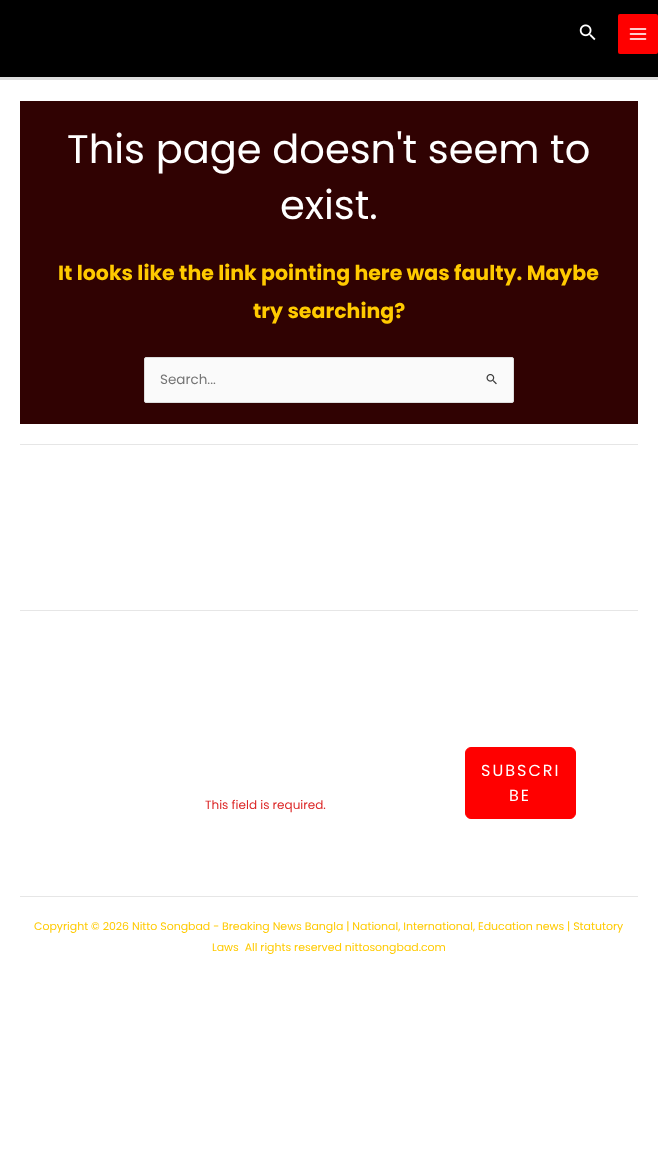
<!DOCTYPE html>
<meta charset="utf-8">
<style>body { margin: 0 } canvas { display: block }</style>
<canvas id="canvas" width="658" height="1167"></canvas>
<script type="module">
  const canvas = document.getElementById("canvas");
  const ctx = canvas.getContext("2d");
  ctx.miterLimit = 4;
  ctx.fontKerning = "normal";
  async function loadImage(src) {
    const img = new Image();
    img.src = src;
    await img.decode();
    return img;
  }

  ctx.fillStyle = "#ffffff";
  ctx.fillRect(0, 0, 658, 1167);
  ctx.fillStyle = "#000000";
  ctx.fillRect(0, 0, 658, 77);
  ctx.fillStyle = "#dddddd";
  ctx.fillRect(0, 77, 658, 3);
  ctx.drawImage(await loadImage("img1.png"), 579, 24, 17, 17);
  ctx.fillStyle = "#ff0000";
  ctx.beginPath();
  ctx.roundRect(618, 14, 40, 40, 2);
  ctx.fill();
  ctx.drawImage(await loadImage("img2.png"), 629, 28, 18, 12);
  ctx.fillStyle = "#300202";
  ctx.fillRect(20, 101, 618, 323);
  ctx.font = "40px Poppins";
  ctx.fillStyle = "#ffffff";
  ctx.fillText("This page doesn't seem to", 67, 163);
  ctx.fillText("exist.", 280, 219);
  ctx.font = "bold 20.5px Poppins";
  ctx.fillStyle = "#ffca00";
  ctx.fillText("It looks like the link pointing here was faulty. Maybe", 58, 280);
  ctx.fillText("try searching?", 253, 318);
  ctx.fillStyle = "#fafafa";
  ctx.beginPath();
  ctx.roundRect(144.5, 357.5, 369, 45, 1.5);
  ctx.fill();
  ctx.strokeStyle = "#dddddd";
  ctx.stroke();
  ctx.font = "13.5px Poppins";
  ctx.fillStyle = "#757575";
  ctx.fillText("Search...", 160, 384);
  ctx.drawImage(await loadImage("img3.png"), 486, 374, 11, 11);
  ctx.fillStyle = "#e6e6e6";
  ctx.fillRect(20, 444, 618, 1);
  ctx.fillRect(20, 610, 618, 1);
  ctx.fillStyle = "#ff0000";
  ctx.beginPath();
  ctx.roundRect(465.5, 747.5, 110, 71, 5.5);
  ctx.fill();
  ctx.strokeStyle = "#ff0000";
  ctx.stroke();
  ctx.letterSpacing = "2px";
  ctx.font = "16px Poppins";
  ctx.fillStyle = "#ffffff";
  ctx.fillText("SUBSCRI", 481, 776);
  ctx.fillText("BE", 509, 801);
  ctx.letterSpacing = "0px";
  ctx.font = "12px Poppins";
  ctx.fillStyle = "#dc2626";
  ctx.fillText("This field is required.", 205, 809);
  ctx.fillStyle = "#e6e6e6";
  ctx.fillRect(20, 896, 618, 1);
  ctx.font = "10.95px Poppins";
  ctx.fillStyle = "#ffca00";
  ctx.fillText("Copyright © 2026 Nitto Songbad - Breaking News Bangla | National, International, Education news | Statutory", 34, 930);
  ctx.fillText("Laws  All rights reserved nittosongbad.com", 212, 951);
</script>
